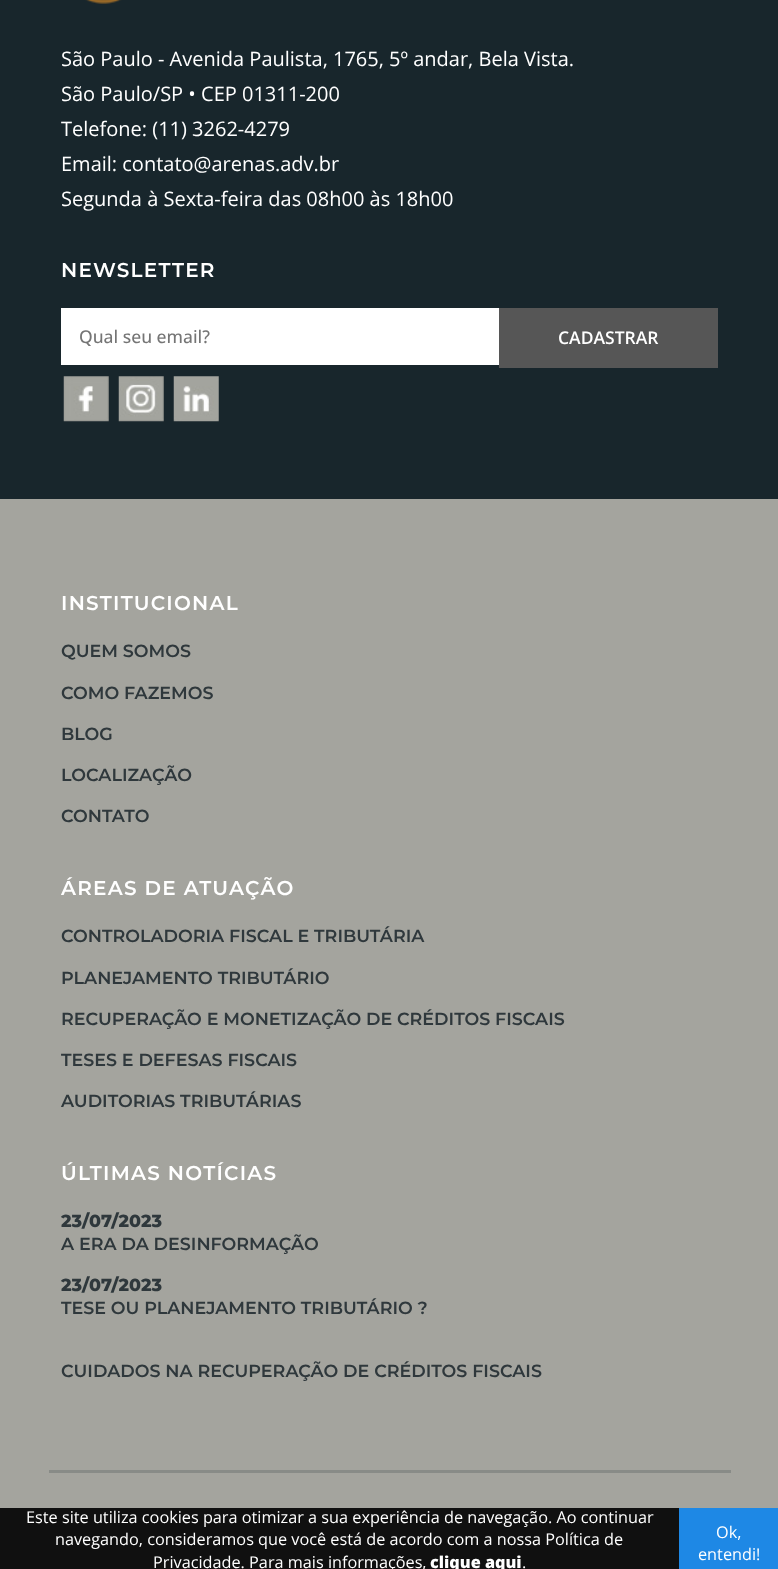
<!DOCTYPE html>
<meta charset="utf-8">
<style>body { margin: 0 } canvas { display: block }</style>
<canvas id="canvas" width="778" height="1569"></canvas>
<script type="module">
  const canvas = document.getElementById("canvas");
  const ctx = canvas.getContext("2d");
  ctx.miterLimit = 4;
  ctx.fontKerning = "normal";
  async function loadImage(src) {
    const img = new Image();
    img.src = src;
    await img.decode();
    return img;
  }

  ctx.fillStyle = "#18262c";
  ctx.fillRect(0, 0, 778, 1569);
  ctx.drawImage(await loadImage("img1.png"), 85, 0, 37, 4);
  ctx.font = "20px Open Sans";
  ctx.fillStyle = "#ffffff";
  ctx.fillText("São Paulo - Avenida Paulista, 1765, 5º andar, Bela Vista.", 61, 66);
  ctx.fillText("São Paulo/SP • CEP 01311-200", 61, 101);
  ctx.fillText("Telefone: (11) 3262-4279", 61, 136);
  ctx.fillText("Email: contato@arenas.adv.br", 61, 171);
  ctx.fillText("Segunda à Sexta-feira das 08h00 às 18h00", 61, 206);
  ctx.letterSpacing = "1.25px";
  ctx.font = "600 20px Montserrat";
  ctx.fillText("NEWSLETTER", 61, 277);
  ctx.fillRect(61, 308, 438, 57);
  ctx.letterSpacing = "0px";
  ctx.font = "500 17.5px Open Sans";
  ctx.fillStyle = "#757575";
  ctx.fillText("Qual seu email?", 79, 343);
  ctx.fillStyle = "#565656";
  ctx.fillRect(499, 308, 219, 60);
  ctx.font = "600 17.5px Open Sans";
  ctx.fillStyle = "#ffffff";
  ctx.fillText("CADASTRAR", 558, 344);
  ctx.drawImage(await loadImage("img2.png"), 63, 376, 46, 46);
  ctx.drawImage(await loadImage("img3.png"), 118, 376, 46, 46);
  ctx.drawImage(await loadImage("img4.png"), 173, 376, 46, 46);
  ctx.fillStyle = "#a4a49e";
  ctx.fillRect(0, 499, 778, 1009);
  ctx.fillStyle = "#101010";
  ctx.fillRect(0, 1508, 679, 61);
  ctx.letterSpacing = "1.25px";
  ctx.font = "600 20px Montserrat";
  ctx.fillStyle = "#ffffff";
  ctx.fillText("INSTITUCIONAL", 61, 610);
  ctx.letterSpacing = "0px";
  ctx.font = "600 17.5px Montserrat";
  ctx.fillStyle = "#2f383c";
  ctx.fillText("QUEM SOMOS", 61, 657);
  ctx.fillText("COMO FAZEMOS", 61, 699);
  ctx.fillText("BLOG", 61, 740);
  ctx.fillText("LOCALIZAÇÃO", 61, 781);
  ctx.fillText("CONTATO", 61, 822);
  ctx.letterSpacing = "1.25px";
  ctx.font = "600 20px Montserrat";
  ctx.fillStyle = "#ffffff";
  ctx.fillText("ÁREAS DE ATUAÇÃO", 61, 895);
  ctx.letterSpacing = "0px";
  ctx.font = "600 17.5px Montserrat";
  ctx.fillStyle = "#2f383c";
  ctx.fillText("CONTROLADORIA FISCAL E TRIBUTÁRIA", 61, 942);
  ctx.fillText("PLANEJAMENTO TRIBUTÁRIO", 61, 984);
  ctx.fillText("RECUPERAÇÃO E MONETIZAÇÃO DE CRÉDITOS FISCAIS", 61, 1025);
  ctx.fillText("TESES E DEFESAS FISCAIS", 61, 1066);
  ctx.fillText("AUDITORIAS TRIBUTÁRIAS", 61, 1107);
  ctx.letterSpacing = "1.25px";
  ctx.font = "600 20px Montserrat";
  ctx.fillStyle = "#ffffff";
  ctx.fillText("ÚLTIMAS NOTÍCIAS", 61, 1180);
  ctx.letterSpacing = "0px";
  ctx.font = "800 17.5px Montserrat";
  ctx.fillStyle = "#2f383c";
  ctx.fillText("23/07/2023", 61, 1227);
  ctx.font = "600 17.5px Montserrat";
  ctx.fillText("A ERA DA DESINFORMAÇÃO", 61, 1250);
  ctx.font = "800 17.5px Montserrat";
  ctx.fillText("23/07/2023", 61, 1291);
  ctx.font = "600 17.5px Montserrat";
  ctx.fillText("TESE OU PLANEJAMENTO TRIBUTÁRIO ?", 61, 1314);
  ctx.fillText("CUIDADOS NA RECUPERAÇÃO DE CRÉDITOS FISCAIS", 61, 1377);
  ctx.fillStyle = "#888b87";
  ctx.fillRect(49, 1470, 682, 3);
  ctx.font = "16.25px Open Sans";
  ctx.fillStyle = "#ffffff";
  ctx.fillText("Este site utiliza cookies para otimizar a sua experiência de navegação. Ao continuar", 26, 1523);
  ctx.fillText("navegando, consideramos que você está de acordo com a nossa Política de", 55, 1545);
  ctx.fillText("Privacidade. Para mais informações,", 153, 1568);
  ctx.font = "800 16.25px Open Sans";
  ctx.fillText("clique aqui", 430, 1568);
  ctx.font = "16.25px Open Sans";
  ctx.fillText(".", 522, 1568);
  ctx.fillStyle = "#1e88e5";
  ctx.fillRect(679, 1508, 99, 61);
  ctx.fillStyle = "#ffffff";
  ctx.fillText("Ok,", 716, 1538);
  ctx.fillText("entendi!", 698, 1560);
</script>
